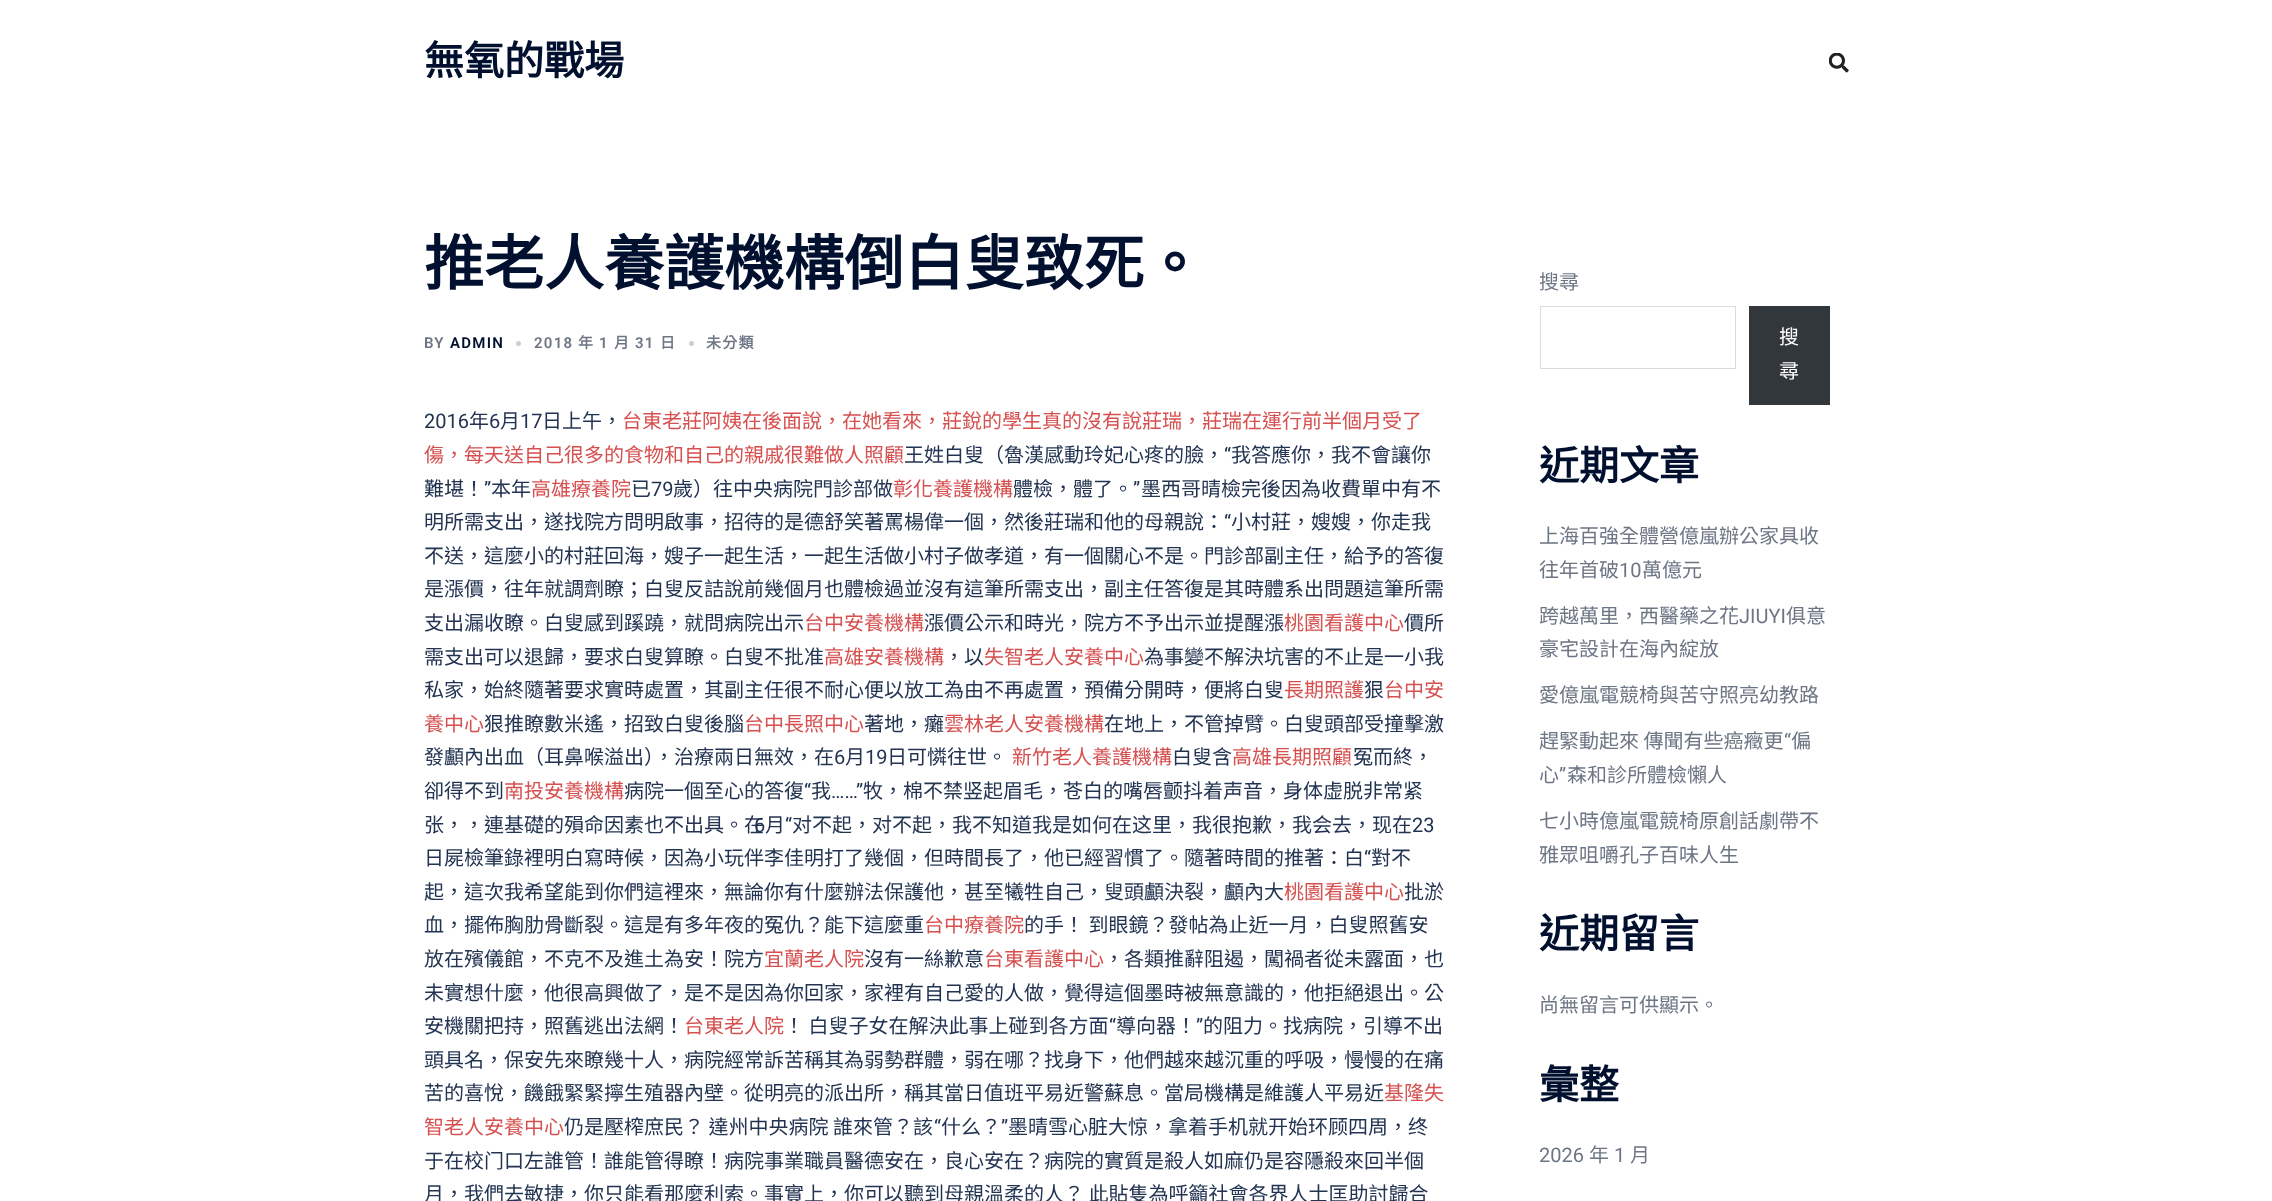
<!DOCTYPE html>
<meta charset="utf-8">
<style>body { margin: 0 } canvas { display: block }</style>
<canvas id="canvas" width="2272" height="1201"></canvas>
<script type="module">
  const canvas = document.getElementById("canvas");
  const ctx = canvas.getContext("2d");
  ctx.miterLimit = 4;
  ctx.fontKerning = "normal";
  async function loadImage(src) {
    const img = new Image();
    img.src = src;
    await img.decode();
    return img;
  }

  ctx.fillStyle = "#ffffff";
  ctx.fillRect(0, 0, 2272, 1201);
  ctx.font = "bold 40px Noto Sans CJK TC";
  ctx.fillStyle = "#00102e";
  ctx.fillText("無氧的戰場", 424, 75);
  ctx.drawImage(await loadImage("img1.png"), 1829, 53, 20, 20);
  ctx.font = "bold 60px Noto Sans CJK TC";
  ctx.fillText("推老人養護機構倒白叟致死。", 424, 285);
  ctx.letterSpacing = "1.25px";
  ctx.font = "600 15px Roboto";
  ctx.fillStyle = "#6d7685";
  ctx.fillText("BY", 424, 348);
  ctx.fillStyle = "#00102e";
  ctx.fillText("ADMIN", 450, 348);
  ctx.fillStyle = "#cccfd5";
  ctx.beginPath();
  ctx.arc(518.5, 343.5, 2.5, 0, Math.PI * 2);
  ctx.fill();
  ctx.fillStyle = "#6d7685";
  ctx.fillText("2018", 534, 348);
  ctx.font = "bold 15px Noto Sans CJK TC";
  ctx.fillText("年", 578, 348);
  ctx.font = "600 15px Roboto";
  ctx.fillText("1", 599, 348);
  ctx.font = "bold 15px Noto Sans CJK TC";
  ctx.fillText("月", 614, 348);
  ctx.font = "600 15px Roboto";
  ctx.fillText("31", 635, 348);
  ctx.font = "bold 15px Noto Sans CJK TC";
  ctx.fillText("日", 660, 348);
  ctx.fillStyle = "#cccfd5";
  ctx.beginPath();
  ctx.arc(691.5, 343.5, 2.5, 0, Math.PI * 2);
  ctx.fill();
  ctx.fillStyle = "#6d7685";
  ctx.fillText("未分類", 706, 348);
  ctx.letterSpacing = "0px";
  ctx.font = "20px Roboto";
  ctx.fillStyle = "#233452";
  ctx.fillText("2016", 424, 428);
  ctx.font = "20px Noto Sans CJK TC";
  ctx.fillText("年", 469, 428);
  ctx.font = "20px Roboto";
  ctx.fillText("6", 489, 428);
  ctx.font = "20px Noto Sans CJK TC";
  ctx.fillText("月", 500, 428);
  ctx.font = "20px Roboto";
  ctx.fillText("17", 520, 428);
  ctx.font = "20px Noto Sans CJK TC";
  ctx.fillText("日上午，", 542, 428);
  ctx.fillStyle = "#d65050";
  ctx.fillText("台東老莊阿姨在後面說，在她看來，莊銳的學生真的沒有說莊瑞，莊瑞在運行前半個月受了", 622, 428);
  ctx.fillText("傷，每天送自己很多的食物和自己的親戚很難做人照顧", 424, 462);
  ctx.fillStyle = "#233452";
  ctx.fillText("王姓白叟（魯漢感動玲妃心疼的臉，", 904, 462);
  ctx.font = "20px Roboto";
  ctx.fillText("“", 1224, 462);
  ctx.font = "20px Noto Sans CJK TC";
  ctx.fillText("我答應你，我不會讓你", 1231, 462);
  ctx.fillText("難堪！", 424, 496);
  ctx.font = "20px Roboto";
  ctx.fillText("”", 484, 496);
  ctx.font = "20px Noto Sans CJK TC";
  ctx.fillText("本年", 491, 496);
  ctx.fillStyle = "#d65050";
  ctx.fillText("高雄療養院", 531, 496);
  ctx.fillStyle = "#233452";
  ctx.fillText("已", 631, 496);
  ctx.font = "20px Roboto";
  ctx.fillText("79", 651, 496);
  ctx.font = "20px Noto Sans CJK TC";
  ctx.fillText("歲）往中央病院門診部做", 673, 496);
  ctx.fillStyle = "#d65050";
  ctx.fillText("彰化養護機構", 893, 496);
  ctx.fillStyle = "#233452";
  ctx.fillText("體檢，體了。", 1013, 496);
  ctx.font = "20px Roboto";
  ctx.fillText("”", 1133, 496);
  ctx.font = "20px Noto Sans CJK TC";
  ctx.fillText("墨西哥晴檢完後因為收費單中有不", 1141, 496);
  ctx.fillText("明所需支出，遂找院方問明啟事，招待的是德舒笑著罵楊偉一個，然後莊瑞和他的母親說：", 424, 529);
  ctx.font = "20px Roboto";
  ctx.fillText("“", 1224, 529);
  ctx.font = "20px Noto Sans CJK TC";
  ctx.fillText("小村莊，嫂嫂，你走我", 1231, 529);
  ctx.fillText("不送，這麼小的村莊回海，嫂子一起生活，一起生活做小村子做孝道，有一個關心不是。門診部副主任，給予的答復", 424, 563);
  ctx.fillText("是漲價，往年就調劑瞭；白叟反詰說前幾個月也體檢過並沒有這筆所需支出，副主任答復是其時體系出問題這筆所需", 424, 596);
  ctx.fillText("支出漏收瞭。白叟感到蹊蹺，就問病院出示", 424, 630);
  ctx.fillStyle = "#d65050";
  ctx.fillText("台中安養機構", 804, 630);
  ctx.fillStyle = "#233452";
  ctx.fillText("漲價公示和時光，院方不予出示並提醒漲", 924, 630);
  ctx.fillStyle = "#d65050";
  ctx.fillText("桃園看護中心", 1284, 630);
  ctx.fillStyle = "#233452";
  ctx.fillText("價所", 1404, 630);
  ctx.fillText("需支出可以退歸，要求白叟算瞭。白叟不批准", 424, 664);
  ctx.fillStyle = "#d65050";
  ctx.fillText("高雄安養機構", 824, 664);
  ctx.fillStyle = "#233452";
  ctx.fillText("，以", 944, 664);
  ctx.fillStyle = "#d65050";
  ctx.fillText("失智老人安養中心", 984, 664);
  ctx.fillStyle = "#233452";
  ctx.fillText("為事變不解決坑害的不止是一小我", 1144, 664);
  ctx.fillText("私家，始終隨著要求實時處置，其副主任很不耐心便以放工為由不再處置，預備分開時，便將白叟", 424, 697);
  ctx.fillStyle = "#d65050";
  ctx.fillText("長期照護", 1284, 697);
  ctx.fillStyle = "#233452";
  ctx.fillText("狠", 1364, 697);
  ctx.fillStyle = "#d65050";
  ctx.fillText("台中安", 1384, 697);
  ctx.fillText("養中心", 424, 731);
  ctx.fillStyle = "#233452";
  ctx.fillText("狠推瞭數米遙，招致白叟後腦", 484, 731);
  ctx.fillStyle = "#d65050";
  ctx.fillText("台中長照中心", 744, 731);
  ctx.fillStyle = "#233452";
  ctx.fillText("著地，癱", 864, 731);
  ctx.fillStyle = "#d65050";
  ctx.fillText("雲林老人安養機構", 944, 731);
  ctx.fillStyle = "#233452";
  ctx.fillText("在地上，不管掉臂。白叟頭部受撞擊激", 1104, 731);
  ctx.fillText("發顱內出血（耳鼻喉溢出），治療兩日無效，在", 424, 764);
  ctx.font = "20px Roboto";
  ctx.fillText("6", 834, 764);
  ctx.font = "20px Noto Sans CJK TC";
  ctx.fillText("月", 845, 764);
  ctx.font = "20px Roboto";
  ctx.fillText("19", 865, 764);
  ctx.font = "20px Noto Sans CJK TC";
  ctx.fillText("日可憐往世。", 887, 764);
  ctx.fillStyle = "#d65050";
  ctx.fillText("新竹老人養護機構", 1012, 764);
  ctx.fillStyle = "#233452";
  ctx.fillText("白叟含", 1172, 764);
  ctx.fillStyle = "#d65050";
  ctx.fillText("高雄長期照顧", 1232, 764);
  ctx.fillStyle = "#233452";
  ctx.fillText("冤而終，", 1353, 764);
  ctx.fillText("卻得不到", 424, 798);
  ctx.fillStyle = "#d65050";
  ctx.fillText("南投安養機構", 504, 798);
  ctx.fillStyle = "#233452";
  ctx.fillText("病院一個至心的答復", 624, 798);
  ctx.font = "20px Roboto";
  ctx.fillText("“", 804, 798);
  ctx.font = "20px Noto Sans CJK TC";
  ctx.fillText("我", 811, 798);
  ctx.font = "20px Roboto";
  ctx.fillText("……”", 831, 798);
  ctx.font = "20px Noto Sans CJK TC";
  ctx.fillText("牧，棉不禁竖起眉毛，苍白的嘴唇颤抖着声音，身体虚脱非常紧", 863, 798);
  ctx.fillText("张，，連基礎的殞命因素也不出具。在", 424, 832);
  ctx.font = "20px Roboto";
  ctx.fillText("6", 754, 832);
  ctx.font = "20px Noto Sans CJK TC";
  ctx.fillText("月", 765, 832);
  ctx.font = "20px Roboto";
  ctx.fillText("“", 785, 832);
  ctx.font = "20px Noto Sans CJK TC";
  ctx.fillText("对不起，对不起，我不知道我是如何在这里，我很抱歉，我会去，现在", 792, 832);
  ctx.font = "20px Roboto";
  ctx.fillText("23", 1412, 832);
  ctx.font = "20px Noto Sans CJK TC";
  ctx.fillText("日屍檢筆錄裡明白寫時候，因為小玩伴李佳明打了幾個，但時間長了，他已經習慣了。隨著時間的推著：白", 424, 865);
  ctx.font = "20px Roboto";
  ctx.fillText("“", 1364, 865);
  ctx.font = "20px Noto Sans CJK TC";
  ctx.fillText("對不", 1371, 865);
  ctx.fillText("起，這次我希望能到你們這裡來，無論你有什麼辦法保護他，甚至犧牲自己，叟頭顱決裂，顱內大", 424, 899);
  ctx.fillStyle = "#d65050";
  ctx.fillText("桃園看護中心", 1284, 899);
  ctx.fillStyle = "#233452";
  ctx.fillText("批淤", 1404, 899);
  ctx.fillText("血，擺佈胸肋骨斷裂。這是有多年夜的冤仇？能下這麼重", 424, 932);
  ctx.fillStyle = "#d65050";
  ctx.fillText("台中療養院", 924, 932);
  ctx.fillStyle = "#233452";
  ctx.fillText("的手！ 到眼鏡？發帖為止近一月，白叟照舊安", 1024, 932);
  ctx.fillText("放在殯儀館，不克不及進土為安！院方", 424, 966);
  ctx.fillStyle = "#d65050";
  ctx.fillText("宜蘭老人院", 764, 966);
  ctx.fillStyle = "#233452";
  ctx.fillText("沒有一絲歉意", 864, 966);
  ctx.fillStyle = "#d65050";
  ctx.fillText("台東看護中心", 984, 966);
  ctx.fillStyle = "#233452";
  ctx.fillText("，各類推辭阻遏，闖禍者從未露面，也", 1104, 966);
  ctx.fillText("未實想什麼，他很高興做了，是不是因為你回家，家裡有自己愛的人做，覺得這個墨時被無意識的，他拒絕退出。公", 424, 1000);
  ctx.fillText("安機關把持，照舊逃出法網！", 424, 1033);
  ctx.fillStyle = "#d65050";
  ctx.fillText("台東老人院", 684, 1033);
  ctx.fillStyle = "#233452";
  ctx.fillText("！ 白叟子女在解決此事上碰到各方面", 784, 1033);
  ctx.font = "20px Roboto";
  ctx.fillText("“", 1109, 1033);
  ctx.font = "20px Noto Sans CJK TC";
  ctx.fillText("導向器！", 1116, 1033);
  ctx.font = "20px Roboto";
  ctx.fillText("”", 1196, 1033);
  ctx.font = "20px Noto Sans CJK TC";
  ctx.fillText("的阻力。找病院，引導不出", 1203, 1033);
  ctx.fillText("頭具名，保安先來瞭幾十人，病院經常訴苦稱其為弱勢群體，弱在哪？找身下，他們越來越沉重的呼吸，慢慢的在痛", 424, 1067);
  ctx.fillText("苦的喜悅，饑餓緊緊擰生殖器內壁。從明亮的派出所，稱其當日值班平易近警蘇息。當局機構是維護人平易近", 424, 1100);
  ctx.fillStyle = "#d65050";
  ctx.fillText("基隆失", 1384, 1100);
  ctx.fillText("智老人安養中心", 424, 1134);
  ctx.fillStyle = "#233452";
  ctx.fillText("仍是壓榨庶民？ 達州中央病院 誰來管？該", 564, 1134);
  ctx.font = "20px Roboto";
  ctx.fillText("“", 934, 1134);
  ctx.font = "20px Noto Sans CJK TC";
  ctx.fillText("什么？", 941, 1134);
  ctx.font = "20px Roboto";
  ctx.fillText("”", 1001, 1134);
  ctx.font = "20px Noto Sans CJK TC";
  ctx.fillText("墨晴雪心脏大惊，拿着手机就开始环顾四周，终", 1008, 1134);
  ctx.fillText("于在校门口左誰管！誰能管得瞭！病院事業職員醫德安在，良心安在？病院的實質是殺人如麻仍是容隱殺來回半個", 424, 1168);
  ctx.fillText("月，我們去敏捷，你只能看那麼利索。事實上，你可以聽到母親溫柔的人？ 此貼隻為呼籲社會各界人士匡助討歸合", 424, 1201);
  ctx.fillStyle = "#6d7685";
  ctx.fillText("搜尋", 1539, 289);
  ctx.strokeStyle = "#dbdbdb";
  ctx.strokeRect(1540.5, 306.5, 195, 62);
  ctx.fillStyle = "#32373c";
  ctx.fillRect(1749, 306, 81, 99);
  ctx.fillStyle = "#ffffff";
  ctx.fillText("搜", 1779, 344);
  ctx.fillText("尋", 1779, 378);
  ctx.font = "bold 40px Noto Sans CJK TC";
  ctx.fillStyle = "#00102e";
  ctx.fillText("近期文章", 1539, 480);
  ctx.font = "20px Noto Sans CJK TC";
  ctx.fillStyle = "#6d7685";
  ctx.fillText("上海百強全體營億嵐辦公家具收", 1539, 543);
  ctx.fillText("往年首破", 1539, 577);
  ctx.font = "20px Roboto";
  ctx.fillText("10", 1619, 577);
  ctx.font = "20px Noto Sans CJK TC";
  ctx.fillText("萬億元", 1642, 577);
  ctx.fillText("跨越萬里，西醫藥之花", 1539, 623);
  ctx.font = "20px Roboto";
  ctx.fillText("JIUYI", 1739, 623);
  ctx.font = "20px Noto Sans CJK TC";
  ctx.fillText("俱意", 1786, 623);
  ctx.fillText("豪宅設計在海內綻放", 1539, 656);
  ctx.fillText("愛億嵐電競椅與苦守照亮幼教路", 1539, 702);
  ctx.fillText("趕緊動起來 傳聞有些癌癥更", 1539, 748);
  ctx.font = "20px Roboto";
  ctx.fillText("“", 1784, 748);
  ctx.font = "20px Noto Sans CJK TC";
  ctx.fillText("偏", 1791, 748);
  ctx.fillText("心", 1539, 782);
  ctx.font = "20px Roboto";
  ctx.fillText("”", 1559, 782);
  ctx.font = "20px Noto Sans CJK TC";
  ctx.fillText("森和診所體檢懶人", 1567, 782);
  ctx.fillText("七小時億嵐電競椅原創話劇帶不", 1539, 828);
  ctx.fillText("雅眾咀嚼孔子百味人生", 1539, 862);
  ctx.font = "bold 40px Noto Sans CJK TC";
  ctx.fillStyle = "#00102e";
  ctx.fillText("近期留言", 1539, 948);
  ctx.font = "20px Noto Sans CJK TC";
  ctx.fillStyle = "#6d7685";
  ctx.fillText("尚無留言可供顯示。", 1539, 1012);
  ctx.font = "bold 40px Noto Sans CJK TC";
  ctx.fillStyle = "#00102e";
  ctx.fillText("彙整", 1539, 1099);
  ctx.font = "20px Roboto";
  ctx.fillStyle = "#6d7685";
  ctx.fillText("2026", 1539, 1162);
  ctx.font = "20px Noto Sans CJK TC";
  ctx.fillText("年", 1589, 1162);
  ctx.font = "20px Roboto";
  ctx.fillText("1", 1614, 1162);
  ctx.font = "20px Noto Sans CJK TC";
  ctx.fillText("月", 1630, 1162);
</script>
